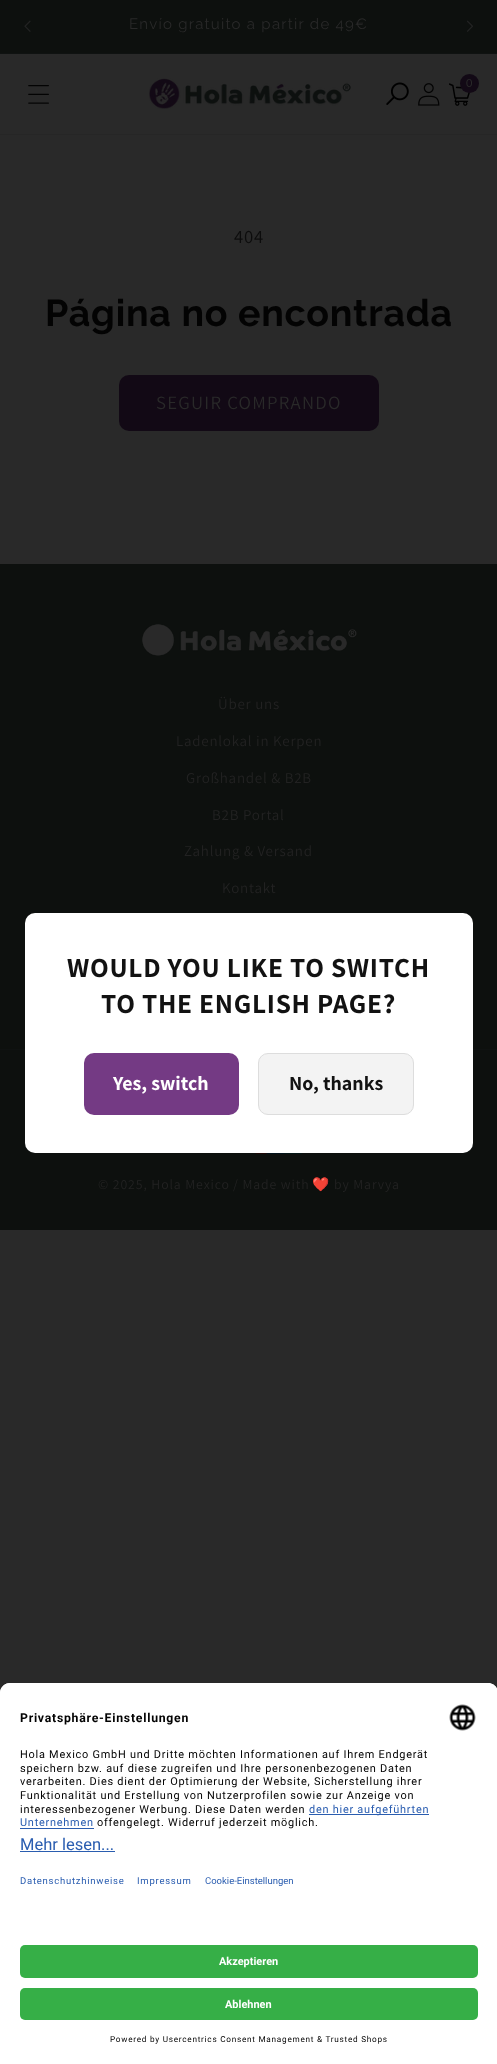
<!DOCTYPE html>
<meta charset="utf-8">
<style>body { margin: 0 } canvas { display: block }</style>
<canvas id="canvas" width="497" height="2064"></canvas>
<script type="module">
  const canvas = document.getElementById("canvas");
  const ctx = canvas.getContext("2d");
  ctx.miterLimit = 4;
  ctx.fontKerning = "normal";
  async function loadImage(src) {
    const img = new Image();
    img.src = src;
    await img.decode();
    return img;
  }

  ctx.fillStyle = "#292929";
  ctx.fillRect(0, 0, 497, 2064);
  ctx.fillStyle = "#0d100e";
  ctx.fillRect(0, 0, 497, 53);
  ctx.fillStyle = "#0f1211";
  ctx.fillRect(0, 53, 497, 1);
  ctx.drawImage(await loadImage("img1.png"), 24, 20, 7, 12);
  ctx.letterSpacing = "1.25px";
  ctx.font = "15px Raleway";
  ctx.fillStyle = "#292929";
  ctx.fillText("Envío gratuito a partir de 49€", 129, 29);
  ctx.drawImage(await loadImage("img2.png"), 466, 20, 7, 12);
  ctx.fillStyle = "#262626";
  ctx.fillRect(0, 134, 497, 1);
  ctx.drawImage(await loadImage("img3.png"), 149, 78, 202, 31);
  ctx.drawImage(await loadImage("img4.png"), 386, 82, 23, 23);
  ctx.drawImage(await loadImage("img5.png"), 418, 83, 22, 23);
  ctx.drawImage(await loadImage("img6.png"), 449, 83, 21, 23);
  ctx.fillStyle = "#120915";
  ctx.beginPath();
  ctx.arc(469.5, 83.5, 9.5, 0, Math.PI * 2);
  ctx.fill();
  ctx.letterSpacing = "0.75px";
  ctx.font = "11px Lato";
  ctx.fillStyle = "#292929";
  ctx.fillText("0", 466, 87);
  ctx.drawImage(await loadImage("img7.png"), 28, 85, 21, 19);
  ctx.font = "18.75px Assistant";
  ctx.fillStyle = "#0c0c0c";
  ctx.fillText("404", 234, 243);
  ctx.font = "bold 37.5px Raleway";
  ctx.fillStyle = "#030303";
  ctx.fillText("Página no encontrada", 45, 326);
  ctx.fillStyle = "#120915";
  ctx.beginPath();
  ctx.roundRect(119, 375, 260, 56, 10);
  ctx.fill();
  ctx.letterSpacing = "1.25px";
  ctx.font = "18.75px Assistant";
  ctx.fillStyle = "#292929";
  ctx.fillText("SEGUIR COMPRANDO", 156, 409);
  ctx.fillStyle = "#0d100e";
  ctx.fillRect(0, 564, 497, 666);
  ctx.drawImage(await loadImage("img8.png"), 142, 624, 215, 32);
  ctx.letterSpacing = "0.75px";
  ctx.font = "15px Assistant";
  ctx.fillStyle = "#222222";
  ctx.fillText("Über uns", 218, 709);
  ctx.fillText("Ladenlokal in Kerpen", 176, 746);
  ctx.fillText("Großhandel & B2B", 186, 783);
  ctx.fillText("B2B Portal", 212, 820);
  ctx.fillText("Zahlung & Versand", 184, 856);
  ctx.fillText("Kontakt", 222, 893);
  ctx.fillStyle = "#0f1211";
  ctx.fillRect(0, 1049, 497, 1);
  ctx.drawImage(await loadImage("img9.png"), 137, 1153, 43, 1);
  ctx.drawImage(await loadImage("img9.png"), 197, 1153, 43, 1);
  ctx.drawImage(await loadImage("img10.png"), 255, 1153, 47, 1);
  ctx.drawImage(await loadImage("img9.png"), 317, 1153, 43, 1);
  ctx.letterSpacing = "0.9px";
  ctx.font = "13.75px Assistant";
  ctx.fillStyle = "#222222";
  ctx.fillText("© 2025, Hola Mexico", 98, 1189);
  ctx.fillText("/ Made with", 233, 1189);
  ctx.font = "13.75px Noto Color Emoji";
  ctx.fillText("❤️", 312, 1189);
  ctx.font = "13.75px Assistant";
  ctx.fillText("by Marvya", 334, 1189);
  ctx.fillStyle = "#ffffff";
  ctx.beginPath();
  ctx.roundRect(25, 913, 448, 240, 10);
  ctx.fill();
  ctx.letterSpacing = "0.75px";
  ctx.font = "bold 27.5px Assistant";
  ctx.fillStyle = "#121212";
  ctx.fillText("WOULD YOU LIKE TO SWITCH", 67, 977);
  ctx.fillText("TO THE ENGLISH PAGE?", 101, 1013);
  ctx.fillStyle = "#743a84";
  ctx.beginPath();
  ctx.roundRect(84, 1053, 155, 62, 10);
  ctx.fill();
  ctx.letterSpacing = "0px";
  ctx.font = "bold 20px Assistant";
  ctx.fillStyle = "#ffffff";
  ctx.fillText("Yes, switch", 113, 1090);
  ctx.fillStyle = "#f3f3f3";
  ctx.beginPath();
  ctx.roundRect(258.5, 1053.5, 155, 61, 9.5);
  ctx.fill();
  ctx.strokeStyle = "#dddddd";
  ctx.stroke();
  ctx.fillStyle = "#121212";
  ctx.fillText("No, thanks", 289, 1090);
  ctx.fillStyle = "#ffffff";
  ctx.beginPath();
  ctx.moveTo(10, 1683);
  ctx.lineTo(488, 1683);
  ctx.bezierCurveTo(493.5, 1683, 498, 1687.5, 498, 1693);
  ctx.lineTo(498, 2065);
  ctx.lineTo(0, 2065);
  ctx.lineTo(0, 1693);
  ctx.bezierCurveTo(0, 1687.5, 4.5, 1683, 10, 1683);
  ctx.closePath();
  ctx.fill();
  ctx.beginPath();
  ctx.moveTo(10, 1683);
  ctx.lineTo(488, 1683);
  ctx.bezierCurveTo(493.5, 1683, 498, 1687.5, 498, 1693);
  ctx.lineTo(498, 1930);
  ctx.lineTo(0, 1930);
  ctx.lineTo(0, 1693);
  ctx.bezierCurveTo(0, 1687.5, 4.5, 1683, 10, 1683);
  ctx.closePath();
  ctx.fill();
  ctx.letterSpacing = "0.75px";
  ctx.font = "bold 12.25px Roboto";
  ctx.fillStyle = "#030303";
  ctx.fillText("Privatsphäre-Einstellungen", 20, 1722);
  ctx.drawImage(await loadImage("img11.png"), 449, 1704, 27, 27);
  ctx.font = "10.95px Roboto";
  ctx.fillText("Hola Mexico GmbH und Dritte möchten Informationen auf Ihrem Endgerät", 20, 1758);
  ctx.fillText("speichern bzw. auf diese zugreifen und Ihre personenbezogenen Daten", 20, 1772);
  ctx.fillText("verarbeiten. Dies dient der Optimierung der Website, Sicherstellung ihrer", 20, 1785);
  ctx.fillText("Funktionalität und Erstellung von Nutzerprofilen sowie zur Anzeige von", 20, 1799);
  ctx.fillText("interessenbezogener Werbung. Diese Daten werden", 20, 1813);
  ctx.fillStyle = "#2a5db0";
  ctx.fillRect(309, 1814, 120, 1);
  ctx.fillText("den hier aufgeführten", 309, 1813);
  ctx.fillText("Unternehmen", 20, 1826);
  ctx.fillRect(20, 1828, 74, 1);
  ctx.fillStyle = "#030303";
  ctx.fillText("offengelegt. Widerruf jederzeit möglich.", 97, 1826);
  ctx.letterSpacing = "0px";
  ctx.font = "16.5px Roboto";
  ctx.fillStyle = "#2a5db0";
  ctx.fillText("Mehr lesen...", 20, 1850);
  ctx.fillRect(20, 1851, 95, 1);
  ctx.letterSpacing = "0.75px";
  ctx.font = "9.5px Roboto";
  ctx.fillText("Datenschutzhinweise", 20, 1884);
  ctx.fillText("Impressum", 137, 1884);
  ctx.letterSpacing = "0px";
  ctx.fillText("Cookie-Einstellungen", 205, 1884);
  ctx.fillStyle = "#36af47";
  ctx.beginPath();
  ctx.roundRect(20, 1945, 458, 33, 5);
  ctx.fill();
  ctx.font = "bold 10.95px Roboto";
  ctx.fillStyle = "#ffffff";
  ctx.fillText("Akzeptieren", 219, 1965);
  ctx.fillStyle = "#36af47";
  ctx.beginPath();
  ctx.roundRect(20, 1988, 458, 32, 5);
  ctx.fill();
  ctx.fillStyle = "#ffffff";
  ctx.fillText("Ablehnen", 225, 2008);
  ctx.letterSpacing = "0.75px";
  ctx.font = "8.2px Roboto";
  ctx.fillStyle = "#030303";
  ctx.fillText("Powered by Usercentrics Consent Management & Trusted Shops", 110, 2042);
</script>
